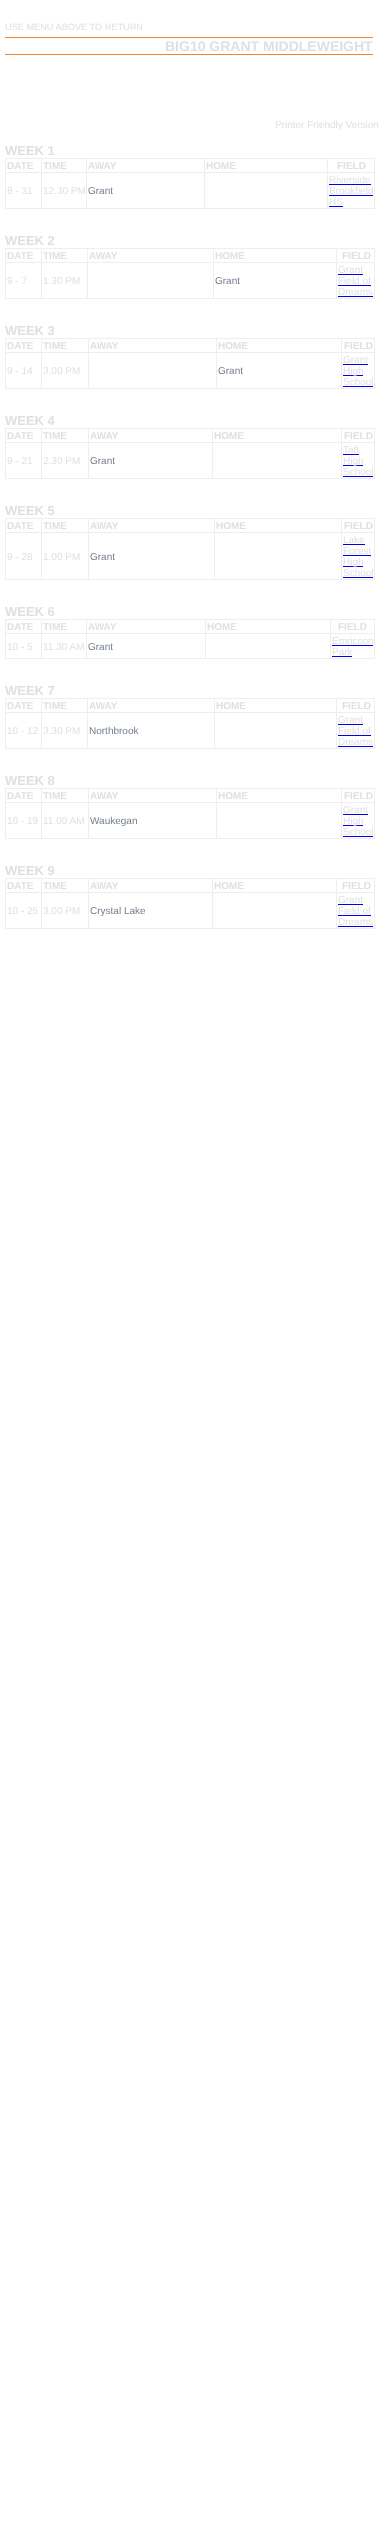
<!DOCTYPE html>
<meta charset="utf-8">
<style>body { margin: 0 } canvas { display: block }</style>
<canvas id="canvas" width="378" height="2539"></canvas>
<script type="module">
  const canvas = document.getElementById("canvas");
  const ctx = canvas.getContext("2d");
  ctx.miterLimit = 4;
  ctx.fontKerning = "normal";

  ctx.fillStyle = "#ffffff";
  ctx.fillRect(0, 0, 378, 2539);
  ctx.font = "9.2px Liberation Sans";
  ctx.fillStyle = "#e0e0e0";
  ctx.fillText("USE MENU ABOVE TO RETURN", 5, 30);
  ctx.fillStyle = "#eb8734";
  ctx.fillRect(5, 37, 368, 1);
  ctx.fillRect(5, 54, 368, 1);
  ctx.font = "bold 14px Liberation Sans";
  ctx.fillStyle = "#e0e0e0";
  ctx.fillText("BIG10 GRANT MIDDLEWEIGHT", 165, 51);
  ctx.font = "10px Liberation Sans";
  ctx.fillText("Printer Friendly Version", 275, 128);
  ctx.font = "bold 13px Liberation Sans";
  ctx.fillText("WEEK 1", 5, 155);
  ctx.fillStyle = "#eeeeee";
  ctx.fillRect(327, 158, 48, 1);
  ctx.fillRect(327, 172, 48, 1);
  ctx.fillRect(374, 172, 1, 37);
  ctx.fillRect(327, 208, 48, 1);
  ctx.fillRect(327, 172, 1, 37);
  ctx.fillRect(204, 172, 124, 1);
  ctx.fillRect(327, 158, 1, 15);
  ctx.fillRect(204, 158, 124, 1);
  ctx.fillRect(204, 208, 124, 1);
  ctx.fillRect(204, 172, 1, 37);
  ctx.fillRect(86, 172, 119, 1);
  ctx.fillRect(204, 158, 1, 15);
  ctx.fillRect(86, 158, 119, 1);
  ctx.fillRect(86, 208, 119, 1);
  ctx.fillRect(86, 172, 1, 37);
  ctx.fillRect(41, 172, 46, 1);
  ctx.fillRect(86, 158, 1, 15);
  ctx.fillRect(41, 158, 46, 1);
  ctx.fillRect(41, 208, 46, 1);
  ctx.fillRect(41, 172, 1, 37);
  ctx.fillRect(5, 172, 37, 1);
  ctx.fillRect(41, 158, 1, 15);
  ctx.fillRect(5, 158, 37, 1);
  ctx.fillRect(5, 208, 37, 1);
  ctx.fillRect(5, 172, 1, 37);
  ctx.fillRect(5, 158, 1, 15);
  ctx.font = "bold 10px Liberation Sans";
  ctx.fillStyle = "#e0e0e0";
  ctx.fillText("DATE", 7, 169);
  ctx.fillText("TIME", 43, 169);
  ctx.fillText("AWAY", 88, 169);
  ctx.fillText("HOME", 206, 169);
  ctx.fillStyle = "#eeeeee";
  ctx.fillRect(374, 158, 1, 15);
  ctx.fillStyle = "#e0e0e0";
  ctx.fillText("FIELD", 337, 169);
  ctx.font = "10px Liberation Sans";
  ctx.fillText("8 - 31", 7, 194);
  ctx.fillText("12.30 PM", 43, 194);
  ctx.fillStyle = "#747e8e";
  ctx.fillText("Grant", 88, 194);
  ctx.fillStyle = "#e0e0e0";
  ctx.fillText("Riverside", 329, 183);
  ctx.fillStyle = "#0000ee";
  ctx.fillRect(329, 184, 42, 1);
  ctx.fillStyle = "#e0e0e0";
  ctx.fillText("Brookfield", 329, 194);
  ctx.fillStyle = "#0000ee";
  ctx.fillRect(329, 195, 44, 1);
  ctx.fillStyle = "#e0e0e0";
  ctx.fillText("HS", 329, 205);
  ctx.fillStyle = "#0000ee";
  ctx.fillRect(329, 206, 14, 1);
  ctx.font = "bold 13px Liberation Sans";
  ctx.fillStyle = "#e0e0e0";
  ctx.fillText("WEEK 2", 5, 245);
  ctx.fillStyle = "#eeeeee";
  ctx.fillRect(336, 248, 39, 1);
  ctx.fillRect(336, 262, 39, 1);
  ctx.fillRect(374, 262, 1, 37);
  ctx.fillRect(336, 298, 39, 1);
  ctx.fillRect(336, 262, 1, 37);
  ctx.fillRect(213, 262, 124, 1);
  ctx.fillRect(336, 248, 1, 15);
  ctx.fillRect(213, 248, 124, 1);
  ctx.fillRect(213, 298, 124, 1);
  ctx.fillRect(213, 262, 1, 37);
  ctx.fillRect(87, 262, 127, 1);
  ctx.fillRect(213, 248, 1, 15);
  ctx.fillRect(87, 248, 127, 1);
  ctx.fillRect(87, 298, 127, 1);
  ctx.fillRect(87, 262, 1, 37);
  ctx.fillRect(41, 262, 47, 1);
  ctx.fillRect(87, 248, 1, 15);
  ctx.fillRect(41, 248, 47, 1);
  ctx.fillRect(41, 298, 47, 1);
  ctx.fillRect(41, 262, 1, 37);
  ctx.fillRect(5, 262, 37, 1);
  ctx.fillRect(41, 248, 1, 15);
  ctx.fillRect(5, 248, 37, 1);
  ctx.fillRect(5, 298, 37, 1);
  ctx.fillRect(5, 262, 1, 37);
  ctx.fillRect(5, 248, 1, 15);
  ctx.font = "bold 10px Liberation Sans";
  ctx.fillStyle = "#e0e0e0";
  ctx.fillText("DATE", 7, 259);
  ctx.fillText("TIME", 43, 259);
  ctx.fillText("AWAY", 89, 259);
  ctx.fillText("HOME", 215, 259);
  ctx.fillStyle = "#eeeeee";
  ctx.fillRect(374, 248, 1, 15);
  ctx.fillStyle = "#e0e0e0";
  ctx.fillText("FIELD", 342, 259);
  ctx.font = "10px Liberation Sans";
  ctx.fillText("9 - 7", 7, 284);
  ctx.fillText("1.30 PM", 43, 284);
  ctx.fillStyle = "#747e8e";
  ctx.fillText("Grant", 215, 284);
  ctx.fillStyle = "#e0e0e0";
  ctx.fillText("Grant", 338, 273);
  ctx.fillStyle = "#0000ee";
  ctx.fillRect(338, 274, 25, 1);
  ctx.fillStyle = "#e0e0e0";
  ctx.fillText("Field of", 338, 284);
  ctx.fillStyle = "#0000ee";
  ctx.fillRect(338, 285, 33, 1);
  ctx.fillStyle = "#e0e0e0";
  ctx.fillText("Dreams", 338, 295);
  ctx.fillStyle = "#0000ee";
  ctx.fillRect(338, 296, 35, 1);
  ctx.font = "bold 13px Liberation Sans";
  ctx.fillStyle = "#e0e0e0";
  ctx.fillText("WEEK 3", 5, 335);
  ctx.fillStyle = "#eeeeee";
  ctx.fillRect(341, 338, 34, 1);
  ctx.fillRect(341, 352, 34, 1);
  ctx.fillRect(374, 352, 1, 37);
  ctx.fillRect(341, 388, 34, 1);
  ctx.fillRect(341, 352, 1, 37);
  ctx.fillRect(216, 352, 126, 1);
  ctx.fillRect(341, 338, 1, 15);
  ctx.fillRect(216, 338, 126, 1);
  ctx.fillRect(216, 388, 126, 1);
  ctx.fillRect(216, 352, 1, 37);
  ctx.fillRect(88, 352, 129, 1);
  ctx.fillRect(216, 338, 1, 15);
  ctx.fillRect(88, 338, 129, 1);
  ctx.fillRect(88, 388, 129, 1);
  ctx.fillRect(88, 352, 1, 37);
  ctx.fillRect(41, 352, 48, 1);
  ctx.fillRect(88, 338, 1, 15);
  ctx.fillRect(41, 338, 48, 1);
  ctx.fillRect(41, 388, 48, 1);
  ctx.fillRect(41, 352, 1, 37);
  ctx.fillRect(5, 352, 37, 1);
  ctx.fillRect(41, 338, 1, 15);
  ctx.fillRect(5, 338, 37, 1);
  ctx.fillRect(5, 388, 37, 1);
  ctx.fillRect(5, 352, 1, 37);
  ctx.fillRect(5, 338, 1, 15);
  ctx.font = "bold 10px Liberation Sans";
  ctx.fillStyle = "#e0e0e0";
  ctx.fillText("DATE", 7, 349);
  ctx.fillText("TIME", 43, 349);
  ctx.fillText("AWAY", 90, 349);
  ctx.fillText("HOME", 218, 349);
  ctx.fillStyle = "#eeeeee";
  ctx.fillRect(374, 338, 1, 15);
  ctx.fillStyle = "#e0e0e0";
  ctx.fillText("FIELD", 344, 349);
  ctx.font = "10px Liberation Sans";
  ctx.fillText("9 - 14", 7, 374);
  ctx.fillText("3.00 PM", 43, 374);
  ctx.fillStyle = "#747e8e";
  ctx.fillText("Grant", 218, 374);
  ctx.fillStyle = "#e0e0e0";
  ctx.fillText("Grant", 343, 363);
  ctx.fillStyle = "#0000ee";
  ctx.fillRect(343, 364, 25, 1);
  ctx.fillRect(343, 375, 20, 1);
  ctx.fillStyle = "#e0e0e0";
  ctx.fillText("High", 343, 374);
  ctx.fillText("School", 343, 385);
  ctx.fillStyle = "#0000ee";
  ctx.fillRect(343, 386, 30, 1);
  ctx.font = "bold 13px Liberation Sans";
  ctx.fillStyle = "#e0e0e0";
  ctx.fillText("WEEK 4", 5, 425);
  ctx.fillStyle = "#eeeeee";
  ctx.fillRect(341, 428, 34, 1);
  ctx.fillRect(341, 442, 34, 1);
  ctx.fillRect(374, 442, 1, 37);
  ctx.fillRect(341, 478, 34, 1);
  ctx.fillRect(341, 442, 1, 37);
  ctx.fillRect(212, 442, 130, 1);
  ctx.fillRect(341, 428, 1, 15);
  ctx.fillRect(212, 428, 130, 1);
  ctx.fillRect(212, 478, 130, 1);
  ctx.fillRect(212, 442, 1, 37);
  ctx.fillRect(88, 442, 125, 1);
  ctx.fillRect(212, 428, 1, 15);
  ctx.fillRect(88, 428, 125, 1);
  ctx.fillRect(88, 478, 125, 1);
  ctx.fillRect(88, 442, 1, 37);
  ctx.fillRect(41, 442, 48, 1);
  ctx.fillRect(88, 428, 1, 15);
  ctx.fillRect(41, 428, 48, 1);
  ctx.fillRect(41, 478, 48, 1);
  ctx.fillRect(41, 442, 1, 37);
  ctx.fillRect(5, 442, 37, 1);
  ctx.fillRect(41, 428, 1, 15);
  ctx.fillRect(5, 428, 37, 1);
  ctx.fillRect(5, 478, 37, 1);
  ctx.fillRect(5, 442, 1, 37);
  ctx.fillRect(5, 428, 1, 15);
  ctx.font = "bold 10px Liberation Sans";
  ctx.fillStyle = "#e0e0e0";
  ctx.fillText("DATE", 7, 439);
  ctx.fillText("TIME", 43, 439);
  ctx.fillText("AWAY", 90, 439);
  ctx.fillText("HOME", 214, 439);
  ctx.fillStyle = "#eeeeee";
  ctx.fillRect(374, 428, 1, 15);
  ctx.fillStyle = "#e0e0e0";
  ctx.fillText("FIELD", 344, 439);
  ctx.font = "10px Liberation Sans";
  ctx.fillText("9 - 21", 7, 464);
  ctx.fillText("2.30 PM", 43, 464);
  ctx.fillStyle = "#747e8e";
  ctx.fillText("Grant", 90, 464);
  ctx.fillStyle = "#e0e0e0";
  ctx.fillText("Taft", 343, 453);
  ctx.fillStyle = "#0000ee";
  ctx.fillRect(343, 454, 16, 1);
  ctx.fillRect(343, 465, 20, 1);
  ctx.fillStyle = "#e0e0e0";
  ctx.fillText("High", 343, 464);
  ctx.fillText("School", 343, 475);
  ctx.fillStyle = "#0000ee";
  ctx.fillRect(343, 476, 30, 1);
  ctx.font = "bold 13px Liberation Sans";
  ctx.fillStyle = "#e0e0e0";
  ctx.fillText("WEEK 5", 5, 515);
  ctx.fillStyle = "#eeeeee";
  ctx.fillRect(341, 518, 34, 1);
  ctx.fillRect(341, 532, 34, 1);
  ctx.fillRect(374, 532, 1, 48);
  ctx.fillRect(341, 579, 34, 1);
  ctx.fillRect(341, 532, 1, 48);
  ctx.fillRect(214, 532, 128, 1);
  ctx.fillRect(341, 518, 1, 15);
  ctx.fillRect(214, 518, 128, 1);
  ctx.fillRect(214, 579, 128, 1);
  ctx.fillRect(214, 532, 1, 48);
  ctx.fillRect(88, 532, 127, 1);
  ctx.fillRect(214, 518, 1, 15);
  ctx.fillRect(88, 518, 127, 1);
  ctx.fillRect(88, 579, 127, 1);
  ctx.fillRect(88, 532, 1, 48);
  ctx.fillRect(41, 532, 48, 1);
  ctx.fillRect(88, 518, 1, 15);
  ctx.fillRect(41, 518, 48, 1);
  ctx.fillRect(41, 579, 48, 1);
  ctx.fillRect(41, 532, 1, 48);
  ctx.fillRect(5, 532, 37, 1);
  ctx.fillRect(41, 518, 1, 15);
  ctx.fillRect(5, 518, 37, 1);
  ctx.fillRect(5, 579, 37, 1);
  ctx.fillRect(5, 532, 1, 48);
  ctx.fillRect(5, 518, 1, 15);
  ctx.font = "bold 10px Liberation Sans";
  ctx.fillStyle = "#e0e0e0";
  ctx.fillText("DATE", 7, 529);
  ctx.fillText("TIME", 43, 529);
  ctx.fillText("AWAY", 90, 529);
  ctx.fillText("HOME", 216, 529);
  ctx.fillStyle = "#eeeeee";
  ctx.fillRect(374, 518, 1, 15);
  ctx.fillStyle = "#e0e0e0";
  ctx.fillText("FIELD", 344, 529);
  ctx.font = "10px Liberation Sans";
  ctx.fillText("9 - 28", 7, 560);
  ctx.fillText("1.00 PM", 43, 560);
  ctx.fillStyle = "#747e8e";
  ctx.fillText("Grant", 90, 560);
  ctx.fillStyle = "#e0e0e0";
  ctx.fillText("Lake", 343, 543);
  ctx.fillStyle = "#0000ee";
  ctx.fillRect(343, 544, 22, 1);
  ctx.fillStyle = "#e0e0e0";
  ctx.fillText("Forest", 343, 554);
  ctx.fillStyle = "#0000ee";
  ctx.fillRect(343, 555, 28, 1);
  ctx.fillRect(343, 566, 20, 1);
  ctx.fillStyle = "#e0e0e0";
  ctx.fillText("High", 343, 565);
  ctx.fillText("School", 343, 576);
  ctx.fillStyle = "#0000ee";
  ctx.fillRect(343, 577, 30, 1);
  ctx.font = "bold 13px Liberation Sans";
  ctx.fillStyle = "#e0e0e0";
  ctx.fillText("WEEK 6", 5, 616);
  ctx.fillStyle = "#eeeeee";
  ctx.fillRect(330, 619, 45, 1);
  ctx.fillRect(330, 633, 45, 1);
  ctx.fillRect(374, 633, 1, 26);
  ctx.fillRect(330, 658, 45, 1);
  ctx.fillRect(330, 633, 1, 26);
  ctx.fillRect(205, 633, 126, 1);
  ctx.fillRect(330, 619, 1, 15);
  ctx.fillRect(205, 619, 126, 1);
  ctx.fillRect(205, 658, 126, 1);
  ctx.fillRect(205, 633, 1, 26);
  ctx.fillRect(86, 633, 120, 1);
  ctx.fillRect(205, 619, 1, 15);
  ctx.fillRect(86, 619, 120, 1);
  ctx.fillRect(86, 658, 120, 1);
  ctx.fillRect(86, 633, 1, 26);
  ctx.fillRect(41, 633, 46, 1);
  ctx.fillRect(86, 619, 1, 15);
  ctx.fillRect(41, 619, 46, 1);
  ctx.fillRect(41, 658, 46, 1);
  ctx.fillRect(41, 633, 1, 26);
  ctx.fillRect(5, 633, 37, 1);
  ctx.fillRect(41, 619, 1, 15);
  ctx.fillRect(5, 619, 37, 1);
  ctx.fillRect(5, 658, 37, 1);
  ctx.fillRect(5, 633, 1, 26);
  ctx.fillRect(5, 619, 1, 15);
  ctx.font = "bold 10px Liberation Sans";
  ctx.fillStyle = "#e0e0e0";
  ctx.fillText("DATE", 7, 630);
  ctx.fillText("TIME", 43, 630);
  ctx.fillText("AWAY", 88, 630);
  ctx.fillText("HOME", 207, 630);
  ctx.fillStyle = "#eeeeee";
  ctx.fillRect(374, 619, 1, 15);
  ctx.fillStyle = "#e0e0e0";
  ctx.fillText("FIELD", 338, 630);
  ctx.font = "10px Liberation Sans";
  ctx.fillText("10 - 5", 7, 650);
  ctx.fillText("11.30 AM", 43, 650);
  ctx.fillStyle = "#747e8e";
  ctx.fillText("Grant", 88, 650);
  ctx.fillStyle = "#e0e0e0";
  ctx.fillText("Emricson", 332, 644);
  ctx.fillStyle = "#0000ee";
  ctx.fillRect(332, 645, 41, 1);
  ctx.fillStyle = "#e0e0e0";
  ctx.fillText("Park", 332, 655);
  ctx.fillStyle = "#0000ee";
  ctx.fillRect(332, 656, 20, 1);
  ctx.font = "bold 13px Liberation Sans";
  ctx.fillStyle = "#e0e0e0";
  ctx.fillText("WEEK 7", 5, 695);
  ctx.fillStyle = "#eeeeee";
  ctx.fillRect(336, 698, 39, 1);
  ctx.fillRect(336, 712, 39, 1);
  ctx.fillRect(374, 712, 1, 37);
  ctx.fillRect(336, 748, 39, 1);
  ctx.fillRect(336, 712, 1, 37);
  ctx.fillRect(214, 712, 123, 1);
  ctx.fillRect(336, 698, 1, 15);
  ctx.fillRect(214, 698, 123, 1);
  ctx.fillRect(214, 748, 123, 1);
  ctx.fillRect(214, 712, 1, 37);
  ctx.fillRect(87, 712, 128, 1);
  ctx.fillRect(214, 698, 1, 15);
  ctx.fillRect(87, 698, 128, 1);
  ctx.fillRect(87, 748, 128, 1);
  ctx.fillRect(87, 712, 1, 37);
  ctx.fillRect(41, 712, 47, 1);
  ctx.fillRect(87, 698, 1, 15);
  ctx.fillRect(41, 698, 47, 1);
  ctx.fillRect(41, 748, 47, 1);
  ctx.fillRect(41, 712, 1, 37);
  ctx.fillRect(5, 712, 37, 1);
  ctx.fillRect(41, 698, 1, 15);
  ctx.fillRect(5, 698, 37, 1);
  ctx.fillRect(5, 748, 37, 1);
  ctx.fillRect(5, 712, 1, 37);
  ctx.fillRect(5, 698, 1, 15);
  ctx.font = "bold 10px Liberation Sans";
  ctx.fillStyle = "#e0e0e0";
  ctx.fillText("DATE", 7, 709);
  ctx.fillText("TIME", 43, 709);
  ctx.fillText("AWAY", 89, 709);
  ctx.fillText("HOME", 216, 709);
  ctx.fillStyle = "#eeeeee";
  ctx.fillRect(374, 698, 1, 15);
  ctx.fillStyle = "#e0e0e0";
  ctx.fillText("FIELD", 342, 709);
  ctx.font = "10px Liberation Sans";
  ctx.fillText("10 - 12", 7, 734);
  ctx.fillText("3.30 PM", 43, 734);
  ctx.fillStyle = "#747e8e";
  ctx.fillText("Northbrook", 89, 734);
  ctx.fillStyle = "#e0e0e0";
  ctx.fillText("Grant", 338, 723);
  ctx.fillStyle = "#0000ee";
  ctx.fillRect(338, 724, 25, 1);
  ctx.fillStyle = "#e0e0e0";
  ctx.fillText("Field of", 338, 734);
  ctx.fillStyle = "#0000ee";
  ctx.fillRect(338, 735, 33, 1);
  ctx.fillStyle = "#e0e0e0";
  ctx.fillText("Dreams", 338, 745);
  ctx.fillStyle = "#0000ee";
  ctx.fillRect(338, 746, 35, 1);
  ctx.font = "bold 13px Liberation Sans";
  ctx.fillStyle = "#e0e0e0";
  ctx.fillText("WEEK 8", 5, 785);
  ctx.fillStyle = "#eeeeee";
  ctx.fillRect(341, 788, 34, 1);
  ctx.fillRect(341, 802, 34, 1);
  ctx.fillRect(374, 802, 1, 37);
  ctx.fillRect(341, 838, 34, 1);
  ctx.fillRect(341, 802, 1, 37);
  ctx.fillRect(216, 802, 126, 1);
  ctx.fillRect(341, 788, 1, 15);
  ctx.fillRect(216, 788, 126, 1);
  ctx.fillRect(216, 838, 126, 1);
  ctx.fillRect(216, 802, 1, 37);
  ctx.fillRect(88, 802, 129, 1);
  ctx.fillRect(216, 788, 1, 15);
  ctx.fillRect(88, 788, 129, 1);
  ctx.fillRect(88, 838, 129, 1);
  ctx.fillRect(88, 802, 1, 37);
  ctx.fillRect(41, 802, 48, 1);
  ctx.fillRect(88, 788, 1, 15);
  ctx.fillRect(41, 788, 48, 1);
  ctx.fillRect(41, 838, 48, 1);
  ctx.fillRect(41, 802, 1, 37);
  ctx.fillRect(5, 802, 37, 1);
  ctx.fillRect(41, 788, 1, 15);
  ctx.fillRect(5, 788, 37, 1);
  ctx.fillRect(5, 838, 37, 1);
  ctx.fillRect(5, 802, 1, 37);
  ctx.fillRect(5, 788, 1, 15);
  ctx.font = "bold 10px Liberation Sans";
  ctx.fillStyle = "#e0e0e0";
  ctx.fillText("DATE", 7, 799);
  ctx.fillText("TIME", 43, 799);
  ctx.fillText("AWAY", 90, 799);
  ctx.fillText("HOME", 218, 799);
  ctx.fillStyle = "#eeeeee";
  ctx.fillRect(374, 788, 1, 15);
  ctx.fillStyle = "#e0e0e0";
  ctx.fillText("FIELD", 344, 799);
  ctx.font = "10px Liberation Sans";
  ctx.fillText("10 - 19", 7, 824);
  ctx.fillText("11.00 AM", 43, 824);
  ctx.fillStyle = "#747e8e";
  ctx.fillText("Waukegan", 90, 824);
  ctx.fillStyle = "#e0e0e0";
  ctx.fillText("Grant", 343, 813);
  ctx.fillStyle = "#0000ee";
  ctx.fillRect(343, 814, 25, 1);
  ctx.fillRect(343, 825, 20, 1);
  ctx.fillStyle = "#e0e0e0";
  ctx.fillText("High", 343, 824);
  ctx.fillText("School", 343, 835);
  ctx.fillStyle = "#0000ee";
  ctx.fillRect(343, 836, 30, 1);
  ctx.font = "bold 13px Liberation Sans";
  ctx.fillStyle = "#e0e0e0";
  ctx.fillText("WEEK 9", 5, 875);
  ctx.fillStyle = "#eeeeee";
  ctx.fillRect(336, 878, 39, 1);
  ctx.fillRect(336, 892, 39, 1);
  ctx.fillRect(374, 892, 1, 37);
  ctx.fillRect(336, 928, 39, 1);
  ctx.fillRect(336, 892, 1, 37);
  ctx.fillRect(212, 892, 125, 1);
  ctx.fillRect(336, 878, 1, 15);
  ctx.fillRect(212, 878, 125, 1);
  ctx.fillRect(212, 928, 125, 1);
  ctx.fillRect(212, 892, 1, 37);
  ctx.fillRect(88, 892, 125, 1);
  ctx.fillRect(212, 878, 1, 15);
  ctx.fillRect(88, 878, 125, 1);
  ctx.fillRect(88, 928, 125, 1);
  ctx.fillRect(88, 892, 1, 37);
  ctx.fillRect(41, 892, 48, 1);
  ctx.fillRect(88, 878, 1, 15);
  ctx.fillRect(41, 878, 48, 1);
  ctx.fillRect(41, 928, 48, 1);
  ctx.fillRect(41, 892, 1, 37);
  ctx.fillRect(5, 892, 37, 1);
  ctx.fillRect(41, 878, 1, 15);
  ctx.fillRect(5, 878, 37, 1);
  ctx.fillRect(5, 928, 37, 1);
  ctx.fillRect(5, 892, 1, 37);
  ctx.fillRect(5, 878, 1, 15);
  ctx.font = "bold 10px Liberation Sans";
  ctx.fillStyle = "#e0e0e0";
  ctx.fillText("DATE", 7, 889);
  ctx.fillText("TIME", 43, 889);
  ctx.fillText("AWAY", 90, 889);
  ctx.fillText("HOME", 214, 889);
  ctx.fillStyle = "#eeeeee";
  ctx.fillRect(374, 878, 1, 15);
  ctx.fillStyle = "#e0e0e0";
  ctx.fillText("FIELD", 342, 889);
  ctx.font = "10px Liberation Sans";
  ctx.fillText("10 - 25", 7, 914);
  ctx.fillText("3.00 PM", 43, 914);
  ctx.fillStyle = "#747e8e";
  ctx.fillText("Crystal Lake", 90, 914);
  ctx.fillStyle = "#e0e0e0";
  ctx.fillText("Grant", 338, 903);
  ctx.fillStyle = "#0000ee";
  ctx.fillRect(338, 904, 25, 1);
  ctx.fillStyle = "#e0e0e0";
  ctx.fillText("Field of", 338, 914);
  ctx.fillStyle = "#0000ee";
  ctx.fillRect(338, 915, 33, 1);
  ctx.fillStyle = "#e0e0e0";
  ctx.fillText("Dreams", 338, 925);
  ctx.fillStyle = "#0000ee";
  ctx.fillRect(338, 926, 35, 1);
</script>
